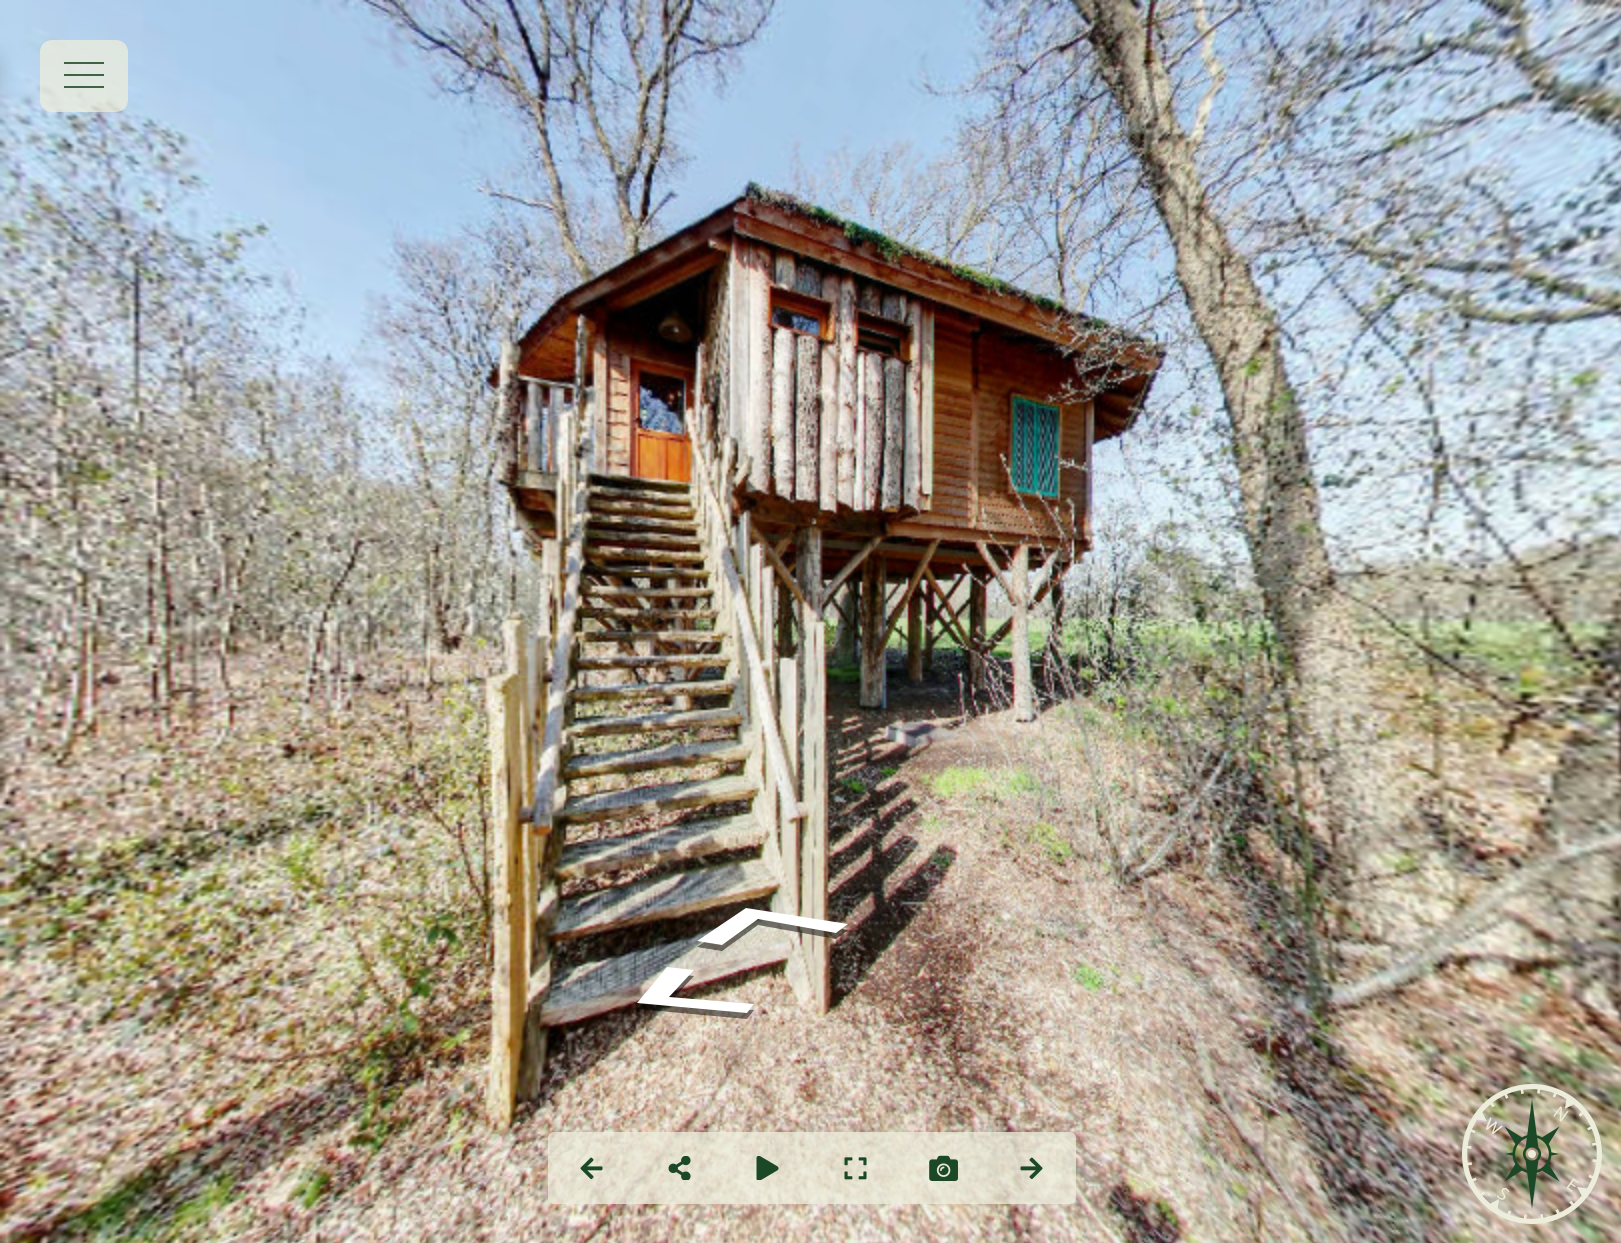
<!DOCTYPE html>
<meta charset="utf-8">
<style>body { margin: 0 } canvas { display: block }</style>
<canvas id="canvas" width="1621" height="1243"></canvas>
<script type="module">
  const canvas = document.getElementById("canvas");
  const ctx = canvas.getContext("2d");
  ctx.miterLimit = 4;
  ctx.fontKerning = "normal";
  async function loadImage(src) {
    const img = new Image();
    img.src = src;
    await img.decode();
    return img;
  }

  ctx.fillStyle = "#ffffff";
  ctx.fillRect(0, 0, 1621, 1243);
  ctx.drawImage(await loadImage("img7.png"), 0, 0, 1621, 1243);
  ctx.fillStyle = "rgba(0, 0, 0, 0.15)";
  ctx.filter = "blur(10px)";
  ctx.beginPath();
  ctx.roundRect(-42, 50, 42, 744, 12);
  ctx.fill();
  ctx.filter = "none";
  ctx.fillStyle = "rgba(237, 237, 220, 0.75)";
  ctx.beginPath();
  ctx.roundRect(40, 40, 88, 72, 12);
  ctx.fill();
  ctx.fillStyle = "rgba(10, 54, 17, 0.75)";
  ctx.fillRect(64, 62, 40, 2);
  ctx.fillRect(64, 74, 40, 2);
  ctx.fillStyle = "#406245";
  ctx.fillRect(64, 86, 40, 2);
  ctx.fillStyle = "rgba(237, 237, 220, 0.77)";
  ctx.beginPath();
  ctx.roundRect(548, 1132, 528, 72, 6);
  ctx.fill();
  ctx.drawImage(await loadImage("img1.png"), 580, 1157, 23, 23);
  ctx.drawImage(await loadImage("img2.png"), 668, 1156, 23, 24);
  ctx.drawImage(await loadImage("img3.png"), 756, 1156, 23, 24);
  ctx.drawImage(await loadImage("img4.png"), 844, 1157, 23, 23);
  ctx.drawImage(await loadImage("img5.png"), 929, 1155, 29, 26);
  ctx.drawImage(await loadImage("img6.png"), 1020, 1157, 23, 23);
  ctx.fillStyle = "rgba(0, 0, 0, 0.5)";
  ctx.beginPath();
  ctx.moveTo(637, 1009);
  ctx.lineTo(667, 973);
  ctx.lineTo(694, 976);
  ctx.lineTo(669, 1003);
  ctx.lineTo(754, 1010);
  ctx.lineTo(747, 1019);
  ctx.fill("evenodd");
  ctx.fillStyle = "#ffffff";
  ctx.beginPath();
  ctx.moveTo(637, 1003);
  ctx.lineTo(667, 967);
  ctx.lineTo(694, 970);
  ctx.lineTo(669, 997);
  ctx.lineTo(754, 1004);
  ctx.lineTo(747, 1013);
  ctx.fill("evenodd");
  ctx.fillStyle = "rgba(0, 0, 0, 0.5)";
  ctx.beginPath();
  ctx.moveTo(746, 914);
  ctx.lineTo(848, 930);
  ctx.lineTo(836, 939);
  ctx.lineTo(758, 925);
  ctx.lineTo(722, 951);
  ctx.lineTo(697, 947);
  ctx.fill("evenodd");
  ctx.fillStyle = "#ffffff";
  ctx.beginPath();
  ctx.moveTo(746, 908);
  ctx.lineTo(848, 924);
  ctx.lineTo(836, 933);
  ctx.lineTo(758, 919);
  ctx.lineTo(722, 945);
  ctx.lineTo(697, 941);
  ctx.fill("evenodd");
  ctx.font = "17px Noto Sans";
  ctx.fillStyle = "#ededdc";
  ctx.save();
  ctx.translate(1552, 1115);
  ctx.rotate(36.1 * Math.PI / 180);
  ctx.fillText("N", 0, 0);
  ctx.restore();
  ctx.save();
  ctx.translate(1483, 1127);
  ctx.rotate(36.1 * Math.PI / 180);
  ctx.fillText("W", 0, 0);
  ctx.restore();
  ctx.save();
  ctx.translate(1565, 1187);
  ctx.rotate(36.1 * Math.PI / 180);
  ctx.fillText("E", 0, 0);
  ctx.restore();
  ctx.save();
  ctx.translate(1496, 1196);
  ctx.rotate(36.1 * Math.PI / 180);
  ctx.fillText("S", 0, 0);
  ctx.restore();
  ctx.drawImage(await loadImage("img8.png"), 1462, 1084, 140, 140);
</script>
